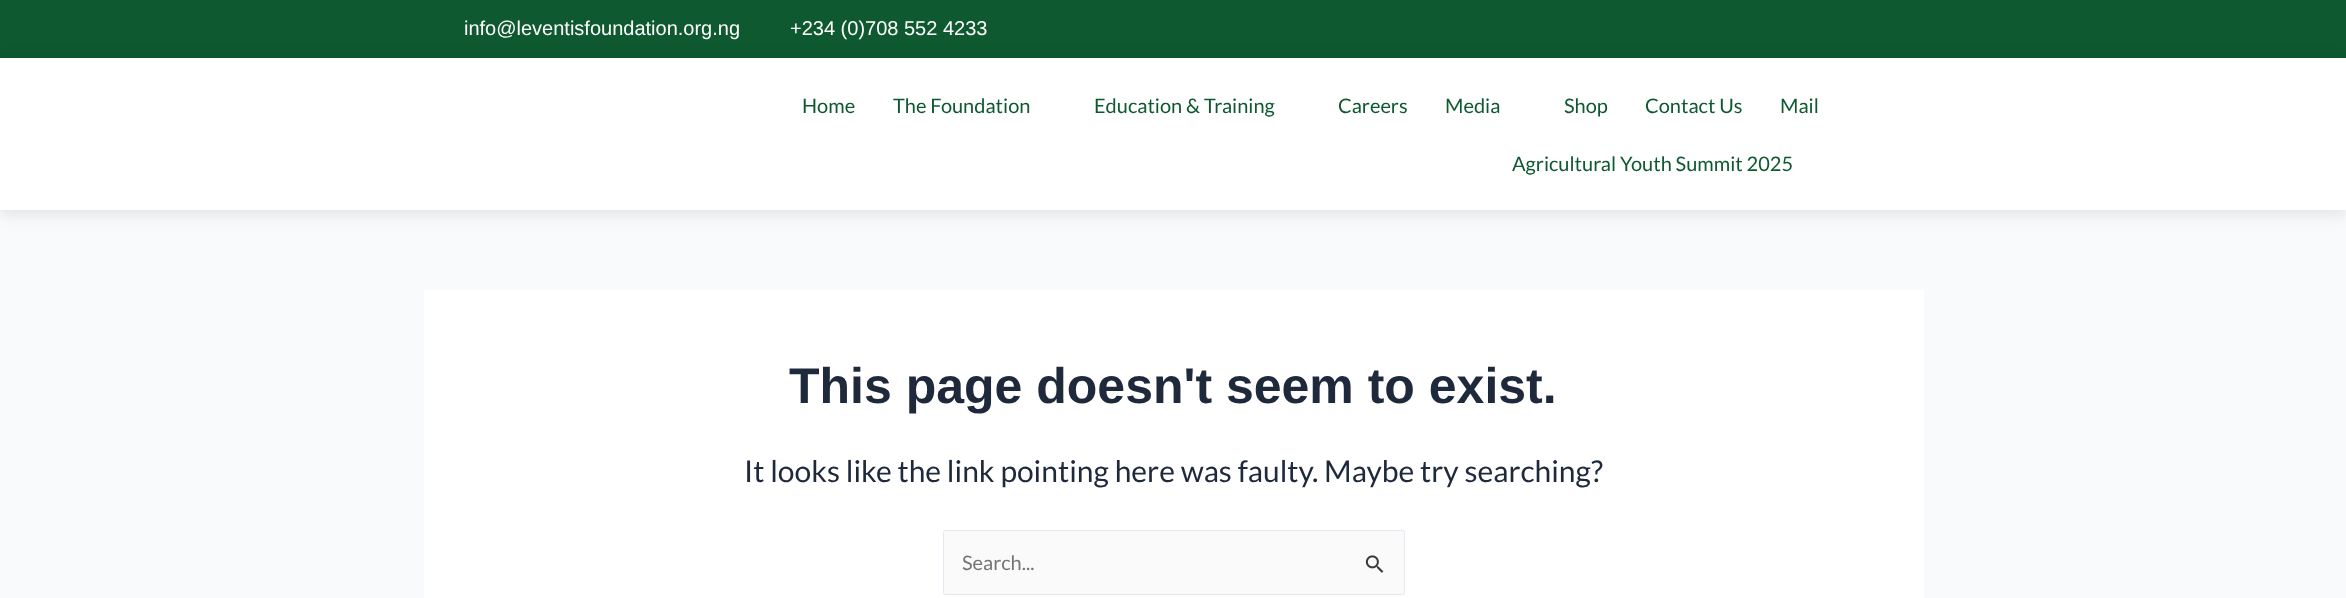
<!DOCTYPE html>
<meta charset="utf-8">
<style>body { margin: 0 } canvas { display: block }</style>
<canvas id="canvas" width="2346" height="598"></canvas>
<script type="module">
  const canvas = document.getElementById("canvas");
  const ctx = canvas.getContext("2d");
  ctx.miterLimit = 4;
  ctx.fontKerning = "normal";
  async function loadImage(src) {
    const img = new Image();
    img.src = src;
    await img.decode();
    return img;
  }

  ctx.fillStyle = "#f9fafb";
  ctx.fillRect(0, 0, 2346, 598);
  ctx.fillStyle = "#0e592f";
  ctx.fillRect(0, 0, 2346, 58);
  ctx.font = "20px Liberation Sans";
  ctx.fillStyle = "#ffffff";
  ctx.fillText("info@leventisfoundation.org.ng", 464, 35);
  ctx.fillText("+234 (0)708 552 4233", 790, 35);
  ctx.fillStyle = "rgba(0, 0, 0, 0.1)";
  ctx.filter = "blur(8px)";
  ctx.beginPath();
  ctx.rect(0, 61, 2346, 153);
  ctx.fill();
  ctx.filter = "none";
  ctx.fillStyle = "#ffffff";
  ctx.fillRect(0, 58, 2346, 152);
  ctx.font = "20px Lato";
  ctx.fillStyle = "#0e592f";
  ctx.fillText("Home", 802, 113);
  ctx.fillText("The Foundation", 893, 113);
  ctx.fillText("Education & Training", 1094, 113);
  ctx.fillText("Careers", 1338, 113);
  ctx.fillText("Media", 1445, 113);
  ctx.fillText("Shop", 1564, 113);
  ctx.fillText("Contact Us", 1645, 113);
  ctx.fillText("Mail", 1780, 113);
  ctx.fillText("Agricultural Youth Summit 2025", 1512, 171);
  ctx.fillStyle = "#ffffff";
  ctx.fillRect(424, 290, 1500, 308);
  ctx.font = "bold 50px Liberation Sans";
  ctx.fillStyle = "#1e293b";
  ctx.fillText("This page doesn't seem to exist.", 789, 403);
  ctx.font = "30px Lato";
  ctx.fillText("It looks like the link pointing here was faulty. Maybe try searching?", 744, 482);
  ctx.fillStyle = "#fafafa";
  ctx.beginPath();
  ctx.roundRect(943.5, 530.5, 461, 64, 2);
  ctx.fill();
  ctx.strokeStyle = "#e2e8f0";
  ctx.stroke();
  ctx.font = "20px Lato";
  ctx.fillStyle = "#757575";
  ctx.fillText("Search...", 962, 570);
  ctx.drawImage(await loadImage("img1.png"), 1365, 555, 19, 18);
</script>
